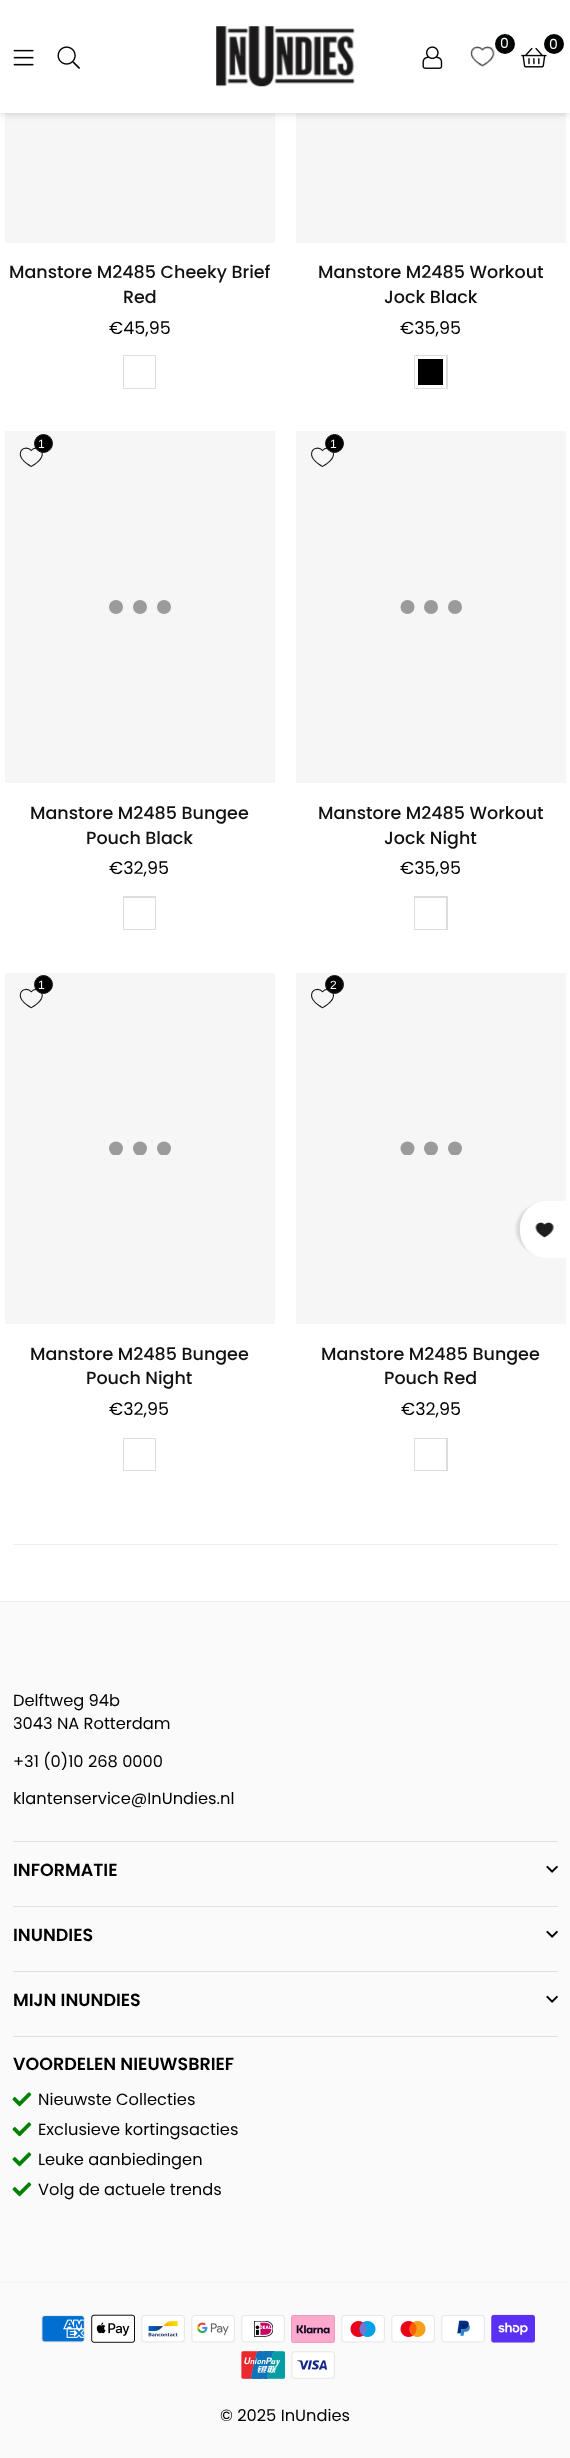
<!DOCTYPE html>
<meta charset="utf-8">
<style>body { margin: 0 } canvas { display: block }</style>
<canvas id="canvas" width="570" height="2458"></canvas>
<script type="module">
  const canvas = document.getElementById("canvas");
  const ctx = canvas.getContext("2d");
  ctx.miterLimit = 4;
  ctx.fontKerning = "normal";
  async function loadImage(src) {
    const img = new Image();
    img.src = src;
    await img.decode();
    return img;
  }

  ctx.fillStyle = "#ffffff";
  ctx.fillRect(0, 0, 570, 2458);
  ctx.fillStyle = "#f6f6f6";
  ctx.fillRect(5, 113, 270, 130);
  ctx.fillRect(296, 113, 270, 130);
  ctx.fillStyle = "rgba(0, 0, 0, 0.2)";
  ctx.filter = "blur(4.5px)";
  ctx.beginPath();
  ctx.rect(0, 0, 570, 113);
  ctx.fill();
  ctx.filter = "none";
  ctx.fillStyle = "#ffffff";
  ctx.fillRect(0, 0, 570, 113);
  ctx.drawImage(await loadImage("img1.png"), 216, 26, 139, 61);
  ctx.fillStyle = "#030505";
  ctx.beginPath();
  ctx.arc(505, 44, 10, 0, Math.PI * 2);
  ctx.fill();
  ctx.font = "14px Poppins";
  ctx.fillStyle = "#ffffff";
  ctx.fillText("0", 500, 48);
  ctx.drawImage(await loadImage("img2.png"), 470, 46, 25, 21);
  ctx.drawImage(await loadImage("img3.png"), 521, 47, 26, 21);
  ctx.fillStyle = "#030505";
  ctx.beginPath();
  ctx.arc(554, 44, 10, 0, Math.PI * 2);
  ctx.fill();
  ctx.fillStyle = "#ffffff";
  ctx.fillText("0", 549, 49);
  ctx.drawImage(await loadImage("img4.png"), 422, 46, 21, 23);
  ctx.drawImage(await loadImage("img5.png"), 13, 49, 21, 17);
  ctx.drawImage(await loadImage("img6.png"), 57, 46, 23, 23);
  ctx.font = "500 17.5px Poppins";
  ctx.fillStyle = "#111111";
  ctx.fillText("Manstore M2485 Cheeky Brief", 9, 278);
  ctx.fillText("Red", 123, 303);
  ctx.font = "17.5px Poppins";
  ctx.fillStyle = "#000000";
  ctx.fillText("€45,95", 109, 334);
  ctx.save();
  ctx.beginPath();
  ctx.moveTo(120, 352);
  ctx.lineTo(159, 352);
  ctx.lineTo(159, 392);
  ctx.lineTo(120, 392);
  ctx.closePath();
  ctx.moveTo(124, 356);
  ctx.lineTo(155, 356);
  ctx.lineTo(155, 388);
  ctx.lineTo(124, 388);
  ctx.closePath();
  ctx.clip("evenodd");
  ctx.fillStyle = "#dddddd";
  ctx.filter = "blur(0.5px)";
  ctx.beginPath();
  ctx.rect(123, 355, 33, 34);
  ctx.fill();
  ctx.filter = "none";
  ctx.restore();
  ctx.strokeStyle = "#ffffff";
  ctx.lineWidth = 3;
  ctx.strokeRect(125.5, 357.5, 28, 29);
  ctx.font = "500 17.5px Poppins";
  ctx.fillStyle = "#111111";
  ctx.fillText("Manstore M2485 Workout", 318, 278);
  ctx.fillText("Jock Black", 384, 303);
  ctx.font = "17.5px Poppins";
  ctx.fillStyle = "#000000";
  ctx.fillText("€35,95", 400, 334);
  ctx.fillStyle = "#dddddd";
  ctx.filter = "blur(0.5px)";
  ctx.beginPath();
  ctx.rect(414, 355, 34, 34);
  ctx.fill();
  ctx.filter = "none";
  ctx.fillStyle = "#000000";
  ctx.beginPath();
  ctx.rect(416.5, 357.5, 28, 29);
  ctx.fill();
  ctx.stroke();
  ctx.fillStyle = "#f6f6f6";
  ctx.fillRect(5, 431, 270, 352);
  ctx.fillStyle = "#9b9b9b";
  ctx.beginPath();
  ctx.arc(116, 607, 7, 0, Math.PI * 2);
  ctx.fill();
  ctx.beginPath();
  ctx.arc(140, 607, 7, 0, Math.PI * 2);
  ctx.fill();
  ctx.beginPath();
  ctx.arc(164, 607, 7, 0, Math.PI * 2);
  ctx.fill();
  ctx.drawImage(await loadImage("img7.png"), 19, 447, 24, 20);
  ctx.fillStyle = "#000000";
  ctx.beginPath();
  ctx.arc(43.5, 443.5, 9, 0, Math.PI * 2);
  ctx.fill();
  ctx.strokeStyle = "#1a1a1a";
  ctx.lineWidth = 1;
  ctx.stroke();
  ctx.font = "12px Liberation Sans";
  ctx.fillStyle = "#ffffff";
  ctx.fillText("1", 38, 448);
  ctx.font = "500 17.5px Poppins";
  ctx.fillStyle = "#111111";
  ctx.fillText("Manstore M2485 Bungee", 30, 819);
  ctx.fillText("Pouch Black", 86, 844);
  ctx.font = "17.5px Poppins";
  ctx.fillStyle = "#000000";
  ctx.fillText("€32,95", 109, 874);
  ctx.save();
  ctx.beginPath();
  ctx.moveTo(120, 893);
  ctx.lineTo(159, 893);
  ctx.lineTo(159, 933);
  ctx.lineTo(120, 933);
  ctx.closePath();
  ctx.moveTo(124, 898);
  ctx.lineTo(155, 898);
  ctx.lineTo(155, 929);
  ctx.lineTo(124, 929);
  ctx.closePath();
  ctx.clip("evenodd");
  ctx.fillStyle = "#dddddd";
  ctx.filter = "blur(0.5px)";
  ctx.beginPath();
  ctx.rect(123, 896, 33, 34);
  ctx.fill();
  ctx.filter = "none";
  ctx.restore();
  ctx.strokeStyle = "#ffffff";
  ctx.lineWidth = 3;
  ctx.strokeRect(125.5, 899.5, 28, 28);
  ctx.fillStyle = "#f6f6f6";
  ctx.fillRect(296, 431, 270, 352);
  ctx.fillStyle = "#9b9b9b";
  ctx.beginPath();
  ctx.arc(407.5, 607, 7, 0, Math.PI * 2);
  ctx.fill();
  ctx.beginPath();
  ctx.arc(431, 607, 7, 0, Math.PI * 2);
  ctx.fill();
  ctx.beginPath();
  ctx.arc(455, 607, 7, 0, Math.PI * 2);
  ctx.fill();
  ctx.drawImage(await loadImage("img8.png"), 311, 447, 23, 20);
  ctx.fillStyle = "#000000";
  ctx.beginPath();
  ctx.arc(334.5, 443.5, 9, 0, Math.PI * 2);
  ctx.fill();
  ctx.strokeStyle = "#1a1a1a";
  ctx.lineWidth = 1;
  ctx.stroke();
  ctx.font = "12px Liberation Sans";
  ctx.fillStyle = "#ffffff";
  ctx.fillText("1", 330, 448);
  ctx.font = "500 17.5px Poppins";
  ctx.fillStyle = "#111111";
  ctx.fillText("Manstore M2485 Workout", 318, 819);
  ctx.fillText("Jock Night", 384, 844);
  ctx.font = "17.5px Poppins";
  ctx.fillStyle = "#000000";
  ctx.fillText("€35,95", 400, 874);
  ctx.save();
  ctx.beginPath();
  ctx.moveTo(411, 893);
  ctx.lineTo(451, 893);
  ctx.lineTo(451, 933);
  ctx.lineTo(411, 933);
  ctx.closePath();
  ctx.moveTo(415, 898);
  ctx.lineTo(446, 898);
  ctx.lineTo(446, 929);
  ctx.lineTo(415, 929);
  ctx.closePath();
  ctx.clip("evenodd");
  ctx.fillStyle = "#dddddd";
  ctx.filter = "blur(0.5px)";
  ctx.beginPath();
  ctx.rect(414, 896, 34, 34);
  ctx.fill();
  ctx.filter = "none";
  ctx.restore();
  ctx.strokeStyle = "#ffffff";
  ctx.lineWidth = 3;
  ctx.strokeRect(416.5, 899.5, 28, 28);
  ctx.fillStyle = "#f6f6f6";
  ctx.fillRect(5, 973, 270, 351);
  ctx.save();
  ctx.beginPath();
  ctx.rect(109, 1141, 62, 14);
  ctx.clip();
  ctx.fillStyle = "#9b9b9b";
  ctx.beginPath();
  ctx.arc(116, 1148.5, 7, 0, Math.PI * 2);
  ctx.fill();
  ctx.beginPath();
  ctx.arc(140, 1148.5, 7, 0, Math.PI * 2);
  ctx.fill();
  ctx.beginPath();
  ctx.arc(164, 1148.5, 7, 0, Math.PI * 2);
  ctx.fill();
  ctx.restore();
  ctx.drawImage(await loadImage("img9.png"), 19, 988, 24, 21);
  ctx.fillStyle = "#000000";
  ctx.beginPath();
  ctx.arc(43.5, 984.5, 9, 0, Math.PI * 2);
  ctx.fill();
  ctx.strokeStyle = "#1a1a1a";
  ctx.lineWidth = 1;
  ctx.stroke();
  ctx.font = "12px Liberation Sans";
  ctx.fillStyle = "#ffffff";
  ctx.fillText("1", 38, 989);
  ctx.font = "500 17.5px Poppins";
  ctx.fillStyle = "#111111";
  ctx.fillText("Manstore M2485 Bungee", 30, 1360);
  ctx.fillText("Pouch Night", 86, 1384);
  ctx.font = "17.5px Poppins";
  ctx.fillStyle = "#000000";
  ctx.fillText("€32,95", 109, 1415);
  ctx.save();
  ctx.beginPath();
  ctx.moveTo(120, 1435);
  ctx.lineTo(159, 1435);
  ctx.lineTo(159, 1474);
  ctx.lineTo(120, 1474);
  ctx.closePath();
  ctx.moveTo(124, 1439);
  ctx.lineTo(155, 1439);
  ctx.lineTo(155, 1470);
  ctx.lineTo(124, 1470);
  ctx.closePath();
  ctx.clip("evenodd");
  ctx.fillStyle = "#dddddd";
  ctx.filter = "blur(0.5px)";
  ctx.beginPath();
  ctx.rect(123, 1438, 33, 33);
  ctx.fill();
  ctx.filter = "none";
  ctx.restore();
  ctx.fillStyle = "#f6f6f6";
  ctx.fillRect(296, 973, 270, 351);
  ctx.save();
  ctx.beginPath();
  ctx.rect(400, 1141, 63, 14);
  ctx.clip();
  ctx.fillStyle = "#9b9b9b";
  ctx.beginPath();
  ctx.arc(407.5, 1148.5, 7, 0, Math.PI * 2);
  ctx.fill();
  ctx.beginPath();
  ctx.arc(431, 1148.5, 7, 0, Math.PI * 2);
  ctx.fill();
  ctx.beginPath();
  ctx.arc(455, 1148.5, 7, 0, Math.PI * 2);
  ctx.fill();
  ctx.restore();
  ctx.drawImage(await loadImage("img10.png"), 311, 988, 23, 21);
  ctx.fillStyle = "#000000";
  ctx.beginPath();
  ctx.arc(334.5, 984.5, 9, 0, Math.PI * 2);
  ctx.fill();
  ctx.stroke();
  ctx.font = "12px Liberation Sans";
  ctx.fillStyle = "#ffffff";
  ctx.fillText("2", 330, 989);
  ctx.font = "500 17.5px Poppins";
  ctx.fillStyle = "#111111";
  ctx.fillText("Manstore M2485 Bungee", 321, 1360);
  ctx.fillText("Pouch Red", 384, 1384);
  ctx.font = "17.5px Poppins";
  ctx.fillStyle = "#000000";
  ctx.fillText("€32,95", 401, 1415);
  ctx.save();
  ctx.beginPath();
  ctx.moveTo(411, 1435);
  ctx.lineTo(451, 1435);
  ctx.lineTo(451, 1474);
  ctx.lineTo(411, 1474);
  ctx.closePath();
  ctx.moveTo(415, 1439);
  ctx.lineTo(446, 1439);
  ctx.lineTo(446, 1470);
  ctx.lineTo(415, 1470);
  ctx.closePath();
  ctx.clip("evenodd");
  ctx.fillStyle = "#dddddd";
  ctx.filter = "blur(0.5px)";
  ctx.beginPath();
  ctx.rect(414, 1438, 34, 33);
  ctx.fill();
  ctx.filter = "none";
  ctx.restore();
  ctx.fillStyle = "#eeeeee";
  ctx.fillRect(13, 1544, 545, 1);
  ctx.fillStyle = "#dadada";
  ctx.filter = "blur(1px)";
  ctx.beginPath();
  ctx.roundRect(516, 1204, 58, 50, 28);
  ctx.fill();
  ctx.filter = "none";
  ctx.fillStyle = "#ffffff";
  ctx.beginPath();
  ctx.moveTo(520, 1230);
  ctx.lineTo(520, 1228);
  ctx.bezierCurveTo(520, 1213, 532, 1201, 547, 1201);
  ctx.lineTo(570, 1201);
  ctx.lineTo(570, 1258);
  ctx.lineTo(547, 1258);
  ctx.bezierCurveTo(532, 1258, 520, 1246, 520, 1230);
  ctx.closePath();
  ctx.fill();
  ctx.drawImage(await loadImage("img11.png"), 535, 1222, 19, 16);
  ctx.fillStyle = "#fafafa";
  ctx.fillRect(0, 1602, 570, 856);
  ctx.fillStyle = "#eeeeee";
  ctx.fillRect(0, 1601, 570, 1);
  ctx.font = "16.25px Poppins";
  ctx.fillStyle = "#000000";
  ctx.fillText("Delftweg 94b", 13, 1706);
  ctx.fillText("3043 NA Rotterdam", 13, 1729);
  ctx.fillText("+31 (0)10 268 0000", 13, 1767);
  ctx.fillText("klantenservice@InUndies.nl", 13, 1804);
  ctx.fillStyle = "#e1e1e1";
  ctx.fillRect(13, 1841, 545, 1);
  ctx.font = "600 17.5px Poppins";
  ctx.fillStyle = "#000000";
  ctx.fillText("INFORMATIE", 13, 1876);
  ctx.drawImage(await loadImage("img12.png"), 546, 1865, 12, 8);
  ctx.fillStyle = "#e1e1e1";
  ctx.fillRect(13, 1906, 545, 1);
  ctx.fillStyle = "#000000";
  ctx.fillText("INUNDIES", 13, 1941);
  ctx.drawImage(await loadImage("img12.png"), 546, 1930, 12, 8);
  ctx.fillStyle = "#e1e1e1";
  ctx.fillRect(13, 1971, 545, 1);
  ctx.fillStyle = "#000000";
  ctx.fillText("MIJN INUNDIES", 13, 2006);
  ctx.drawImage(await loadImage("img12.png"), 546, 1995, 12, 8);
  ctx.fillStyle = "#e1e1e1";
  ctx.fillRect(13, 2036, 545, 1);
  ctx.fillStyle = "#000000";
  ctx.fillText("VOORDELEN NIEUWSBRIEF", 13, 2070);
  ctx.drawImage(await loadImage("img13.png"), 12, 2092, 20, 15);
  ctx.font = "16.25px Poppins";
  ctx.fillText("Nieuwste Collecties", 38, 2105);
  ctx.drawImage(await loadImage("img13.png"), 12, 2122, 20, 15);
  ctx.fillText("Exclusieve kortingsacties", 38, 2135);
  ctx.drawImage(await loadImage("img13.png"), 12, 2152, 20, 15);
  ctx.fillText("Leuke aanbiedingen", 38, 2165);
  ctx.drawImage(await loadImage("img13.png"), 12, 2182, 20, 15);
  ctx.fillText("Volg de actuele trends", 38, 2195);
  ctx.beginPath();
  ctx.moveTo(0, 2282);
  ctx.lineTo(570, 2282);
  ctx.strokeStyle = "#eeeeee";
  ctx.lineWidth = 1.2;
  ctx.setLineDash([1.25, 1.25]);
  ctx.stroke();
  ctx.drawImage(await loadImage("img14.png"), 41, 2315, 44, 28);
  ctx.drawImage(await loadImage("img15.png"), 91, 2314, 44, 29);
  ctx.drawImage(await loadImage("img16.png"), 141, 2315, 44, 28);
  ctx.drawImage(await loadImage("img17.png"), 191, 2315, 44, 28);
  ctx.drawImage(await loadImage("img18.png"), 241, 2315, 44, 28);
  ctx.drawImage(await loadImage("img19.png"), 291, 2315, 44, 28);
  ctx.drawImage(await loadImage("img20.png"), 341, 2315, 44, 28);
  ctx.drawImage(await loadImage("img21.png"), 391, 2315, 44, 28);
  ctx.drawImage(await loadImage("img22.png"), 441, 2315, 44, 28);
  ctx.drawImage(await loadImage("img23.png"), 491, 2314, 44, 29);
  ctx.drawImage(await loadImage("img24.png"), 241, 2351, 44, 28);
  ctx.drawImage(await loadImage("img25.png"), 291, 2351, 44, 28);
  ctx.fillText("© 2025 InUndies", 220, 2421);
</script>
